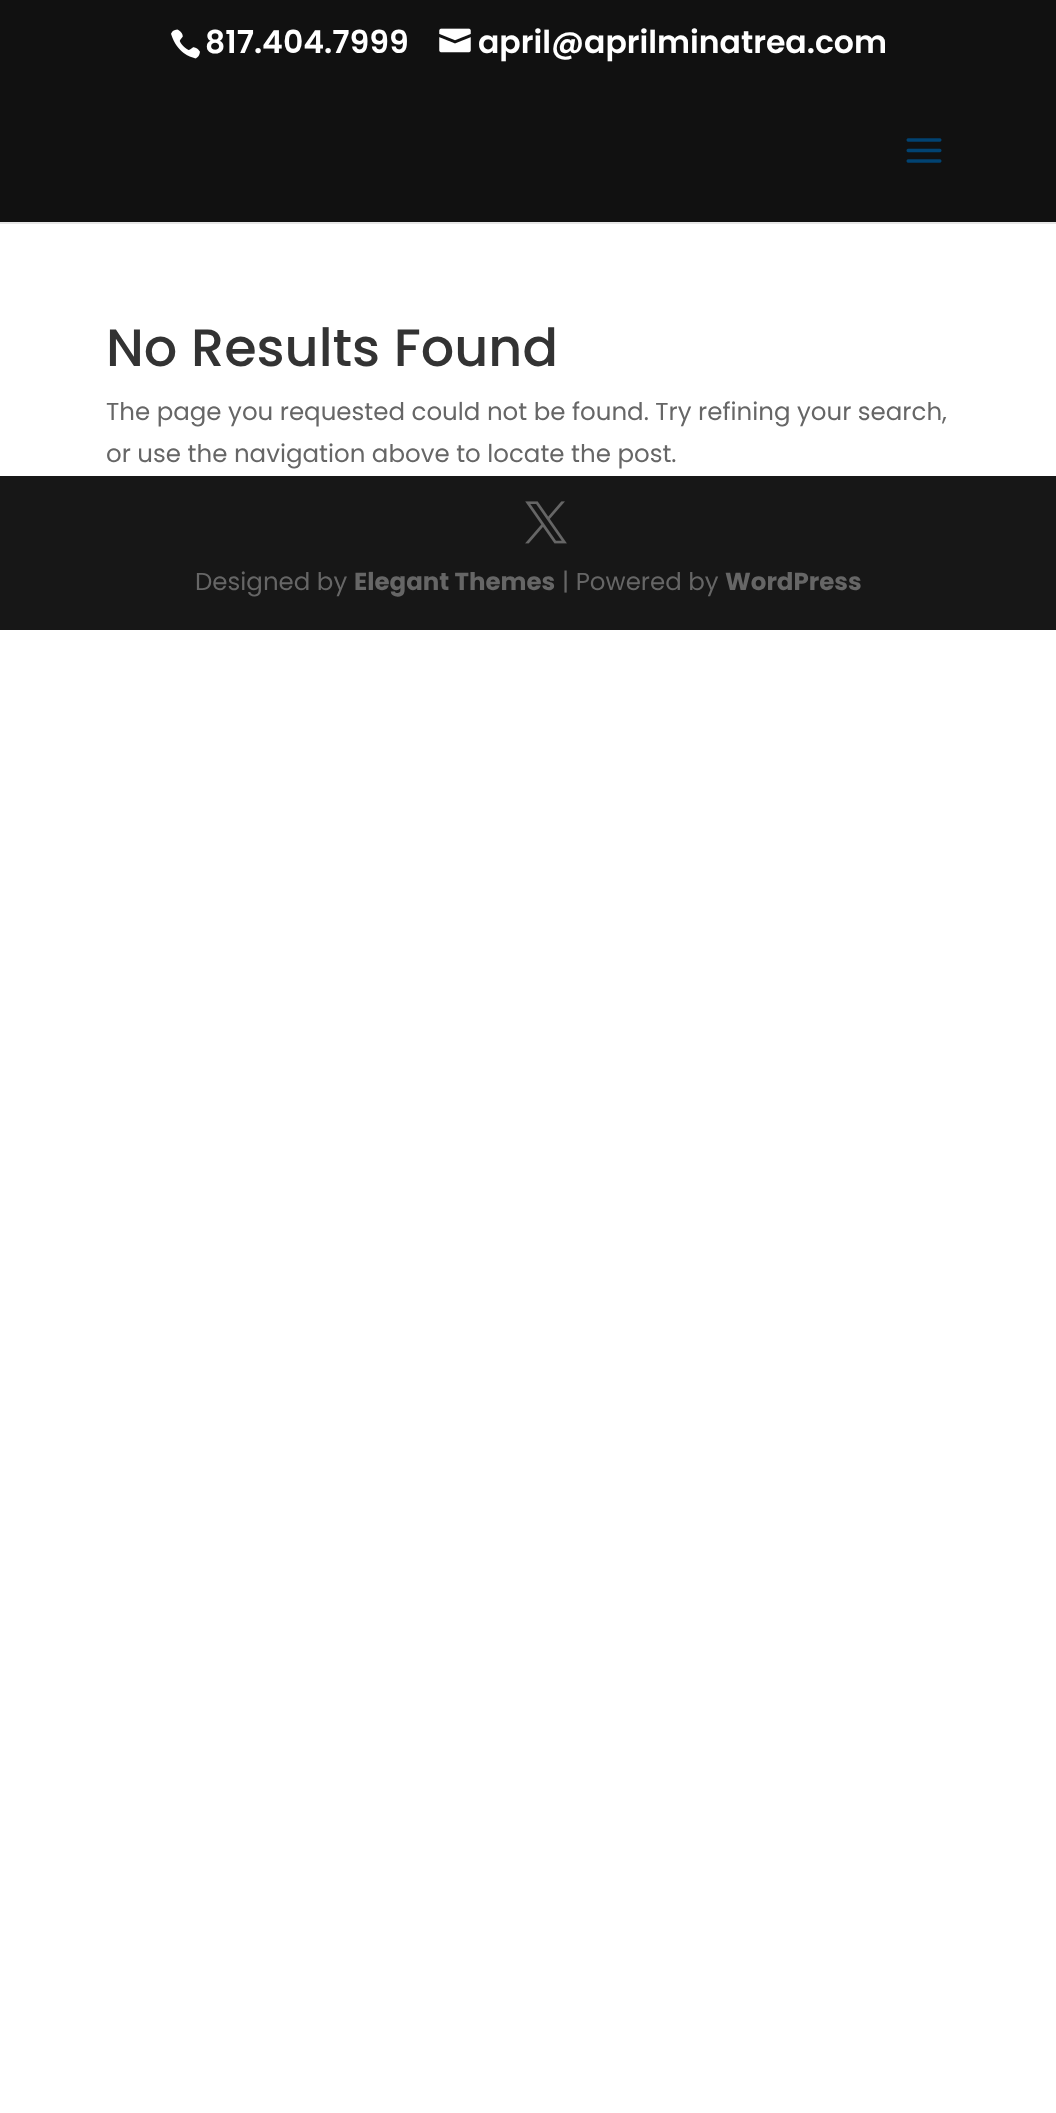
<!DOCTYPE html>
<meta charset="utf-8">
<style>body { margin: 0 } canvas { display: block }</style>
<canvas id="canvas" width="1056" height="2113"></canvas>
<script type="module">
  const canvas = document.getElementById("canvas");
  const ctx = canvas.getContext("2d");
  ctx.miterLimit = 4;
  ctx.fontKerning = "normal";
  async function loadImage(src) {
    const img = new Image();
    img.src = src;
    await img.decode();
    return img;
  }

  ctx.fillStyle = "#ffffff";
  ctx.fillRect(0, 0, 1056, 2113);
  ctx.fillStyle = "#e6e6e6";
  ctx.fillRect(0, 222, 1056, 2);
  ctx.fillStyle = "#111111";
  ctx.fillRect(0, 0, 1056, 222);
  ctx.drawImage(await loadImage("img1.png"), 906, 138, 36, 25);
  ctx.drawImage(await loadImage("img2.png"), 171, 29, 29, 30);
  ctx.font = "600 31.5px Poppins";
  ctx.fillStyle = "#ffffff";
  ctx.fillText("817.404.7999", 205, 53);
  ctx.drawImage(await loadImage("img3.png"), 439, 28, 32, 25);
  ctx.fillText("april@aprilminatrea.com", 478, 53);
  ctx.font = "500 52.5px Poppins";
  ctx.fillStyle = "#333333";
  ctx.fillText("No Results Found", 106, 366);
  ctx.font = "24.5px Poppins";
  ctx.fillStyle = "#666666";
  ctx.fillText("The page you requested could not be found. Try refining your search,", 106, 420);
  ctx.fillText("or use the navigation above to locate the post.", 106, 462);
  ctx.fillStyle = "#171717";
  ctx.fillRect(0, 476, 1056, 154);
  ctx.drawImage(await loadImage("img4.png"), 525, 501, 42, 43);
  ctx.fillStyle = "#666666";
  ctx.fillText("Designed by", 195, 590);
  ctx.font = "bold 24.5px Poppins";
  ctx.fillText("Elegant Themes", 354, 590);
  ctx.font = "24.5px Poppins";
  ctx.fillText("| Powered by", 562, 590);
  ctx.font = "bold 24.5px Poppins";
  ctx.fillText("WordPress", 725, 590);
</script>
